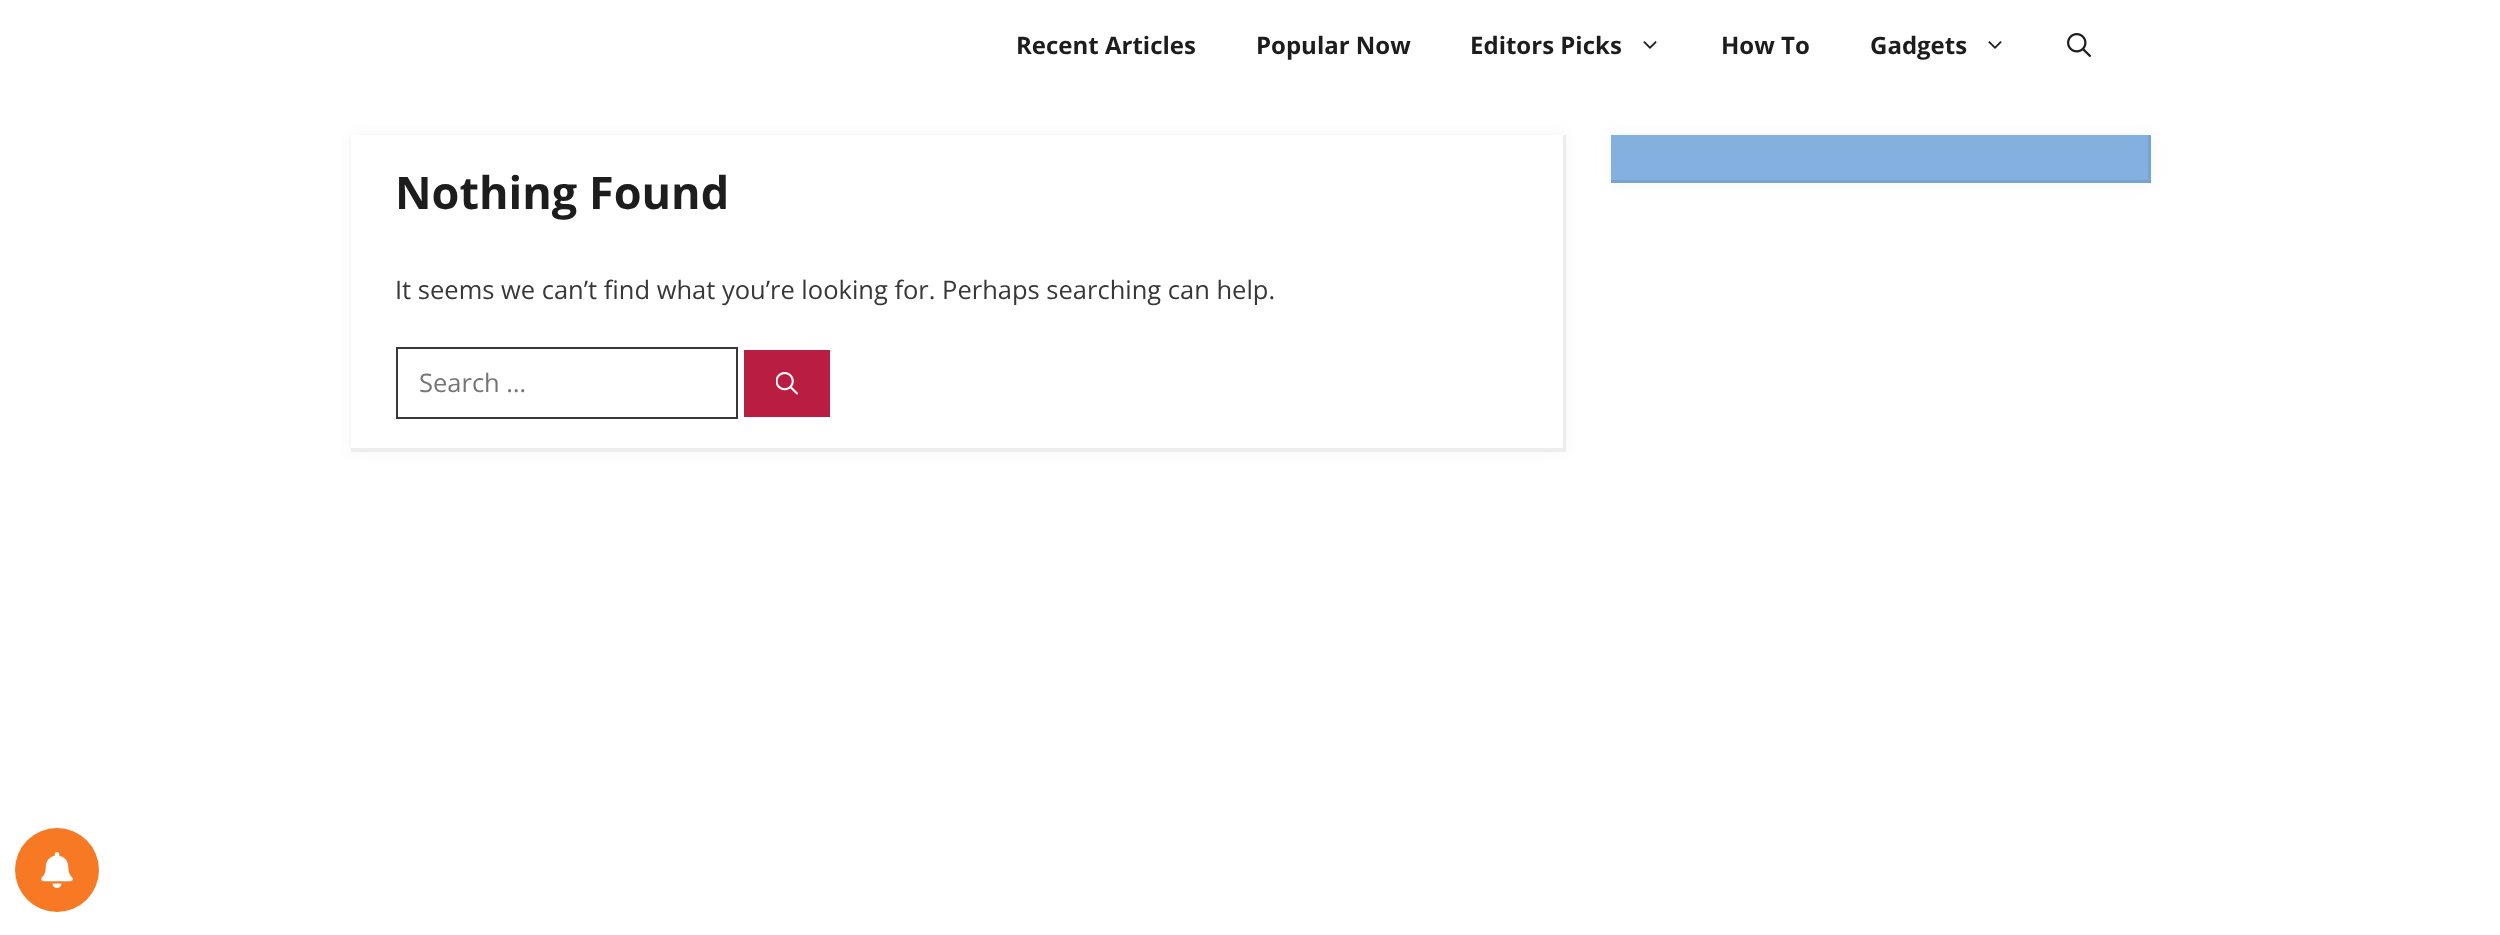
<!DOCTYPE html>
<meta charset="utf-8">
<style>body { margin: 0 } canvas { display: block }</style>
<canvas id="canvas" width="2500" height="935"></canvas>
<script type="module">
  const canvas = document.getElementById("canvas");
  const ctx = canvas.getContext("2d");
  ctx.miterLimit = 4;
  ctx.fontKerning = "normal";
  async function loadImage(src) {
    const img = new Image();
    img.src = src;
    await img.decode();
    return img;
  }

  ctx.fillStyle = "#ffffff";
  ctx.fillRect(0, 0, 2500, 935);
  ctx.font = "bold 24px Open Sans";
  ctx.fillStyle = "#1d1d1d";
  ctx.fillText("Recent Articles", 1016, 54);
  ctx.fillText("Popular Now", 1256, 54);
  ctx.fillText("Editors Picks", 1470, 54);
  ctx.drawImage(await loadImage("img1.png"), 1643, 41, 14, 8);
  ctx.fillText("How To", 1721, 54);
  ctx.fillText("Gadgets", 1870, 54);
  ctx.drawImage(await loadImage("img1.png"), 1988, 41, 14, 8);
  ctx.drawImage(await loadImage("img2.png"), 2067, 33, 24, 24);
  ctx.fillStyle = "rgba(232, 234, 237, 0.5)";
  ctx.filter = "blur(7.5px)";
  ctx.beginPath();
  ctx.rect(1611, 135, 540, 48);
  ctx.fill();
  ctx.filter = "none";
  ctx.fillStyle = "#83b0de";
  ctx.fillRect(1611, 135, 540, 48);
  ctx.fillStyle = "#7aa4ce";
  ctx.beginPath();
  ctx.moveTo(2151, 135);
  ctx.lineTo(2151, 183);
  ctx.lineTo(2148, 180);
  ctx.lineTo(2148, 135);
  ctx.closePath();
  ctx.fill();
  ctx.fillStyle = "rgba(0, 0, 0, 0.07)";
  ctx.beginPath();
  ctx.moveTo(2151, 183);
  ctx.lineTo(1611, 183);
  ctx.lineTo(1611, 180);
  ctx.lineTo(2148, 180);
  ctx.closePath();
  ctx.fill();
  ctx.fillStyle = "rgba(232, 234, 237, 0.5)";
  ctx.filter = "blur(7.5px)";
  ctx.beginPath();
  ctx.rect(351, 135, 1215, 317);
  ctx.fill();
  ctx.filter = "none";
  ctx.fillStyle = "#ffffff";
  ctx.fillRect(351, 135, 1215, 317);
  ctx.fillStyle = "#ededed";
  ctx.beginPath();
  ctx.moveTo(1566, 135);
  ctx.lineTo(1566, 452);
  ctx.lineTo(1563, 448);
  ctx.lineTo(1563, 135);
  ctx.closePath();
  ctx.fill();
  ctx.fillStyle = "rgba(0, 0, 0, 0.07)";
  ctx.beginPath();
  ctx.moveTo(1566, 452);
  ctx.lineTo(351, 452);
  ctx.lineTo(351, 448);
  ctx.lineTo(1563, 448);
  ctx.closePath();
  ctx.fill();
  ctx.font = "bold 45px Open Sans";
  ctx.fillStyle = "#1d1d1d";
  ctx.fillText("Nothing Found", 395, 209);
  ctx.font = "25.5px Open Sans";
  ctx.fillStyle = "#383838";
  ctx.fillText("It seems we can’t find what you’re looking for. Perhaps searching can help.", 395, 299);
  ctx.strokeStyle = "#383838";
  ctx.lineWidth = 2;
  ctx.strokeRect(397, 348, 340, 70);
  ctx.fillStyle = "#757575";
  ctx.fillText("Search …", 419, 392);
  ctx.fillStyle = "#b91d41";
  ctx.fillRect(744, 350, 86, 67);
  ctx.drawImage(await loadImage("img3.png"), 776, 372, 22, 23);
  ctx.fillStyle = "#f77924";
  ctx.beginPath();
  ctx.arc(57, 870, 42, 0, Math.PI * 2);
  ctx.fill();
  ctx.drawImage(await loadImage("img4.png"), 41, 852, 32, 36);
</script>
